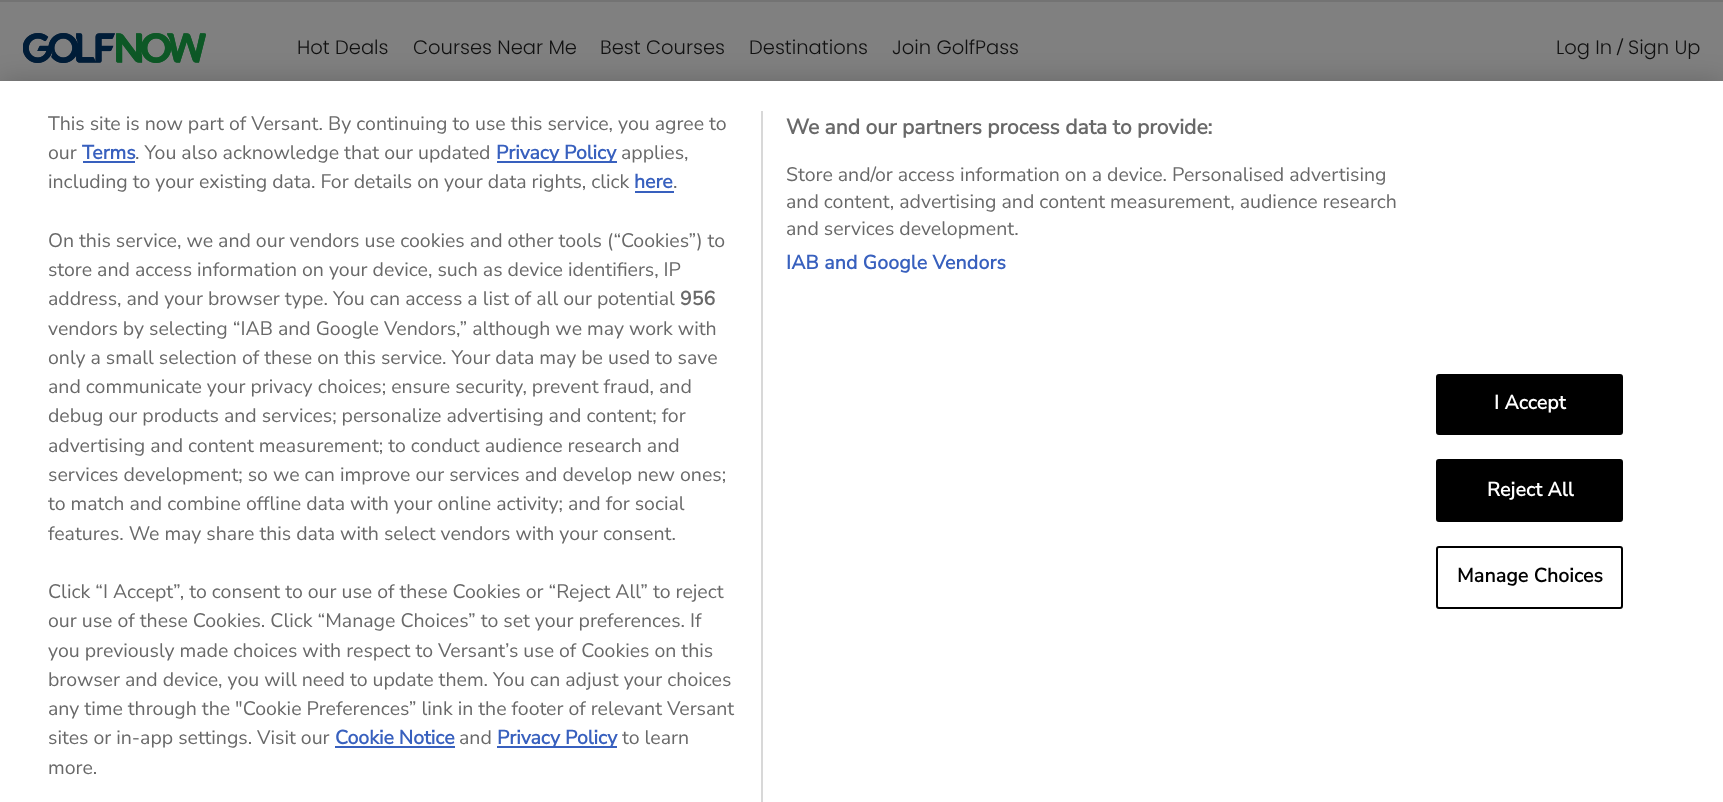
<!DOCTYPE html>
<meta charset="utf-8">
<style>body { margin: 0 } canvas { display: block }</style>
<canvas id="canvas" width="1723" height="802"></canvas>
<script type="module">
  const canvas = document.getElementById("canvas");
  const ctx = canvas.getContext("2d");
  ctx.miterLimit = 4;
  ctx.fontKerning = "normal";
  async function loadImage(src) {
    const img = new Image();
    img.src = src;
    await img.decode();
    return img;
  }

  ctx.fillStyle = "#808080";
  ctx.fillRect(0, 0, 1723, 802);
  ctx.fillStyle = "#737373";
  ctx.fillRect(0, 0, 1723, 2);
  ctx.drawImage(await loadImage("img1.png"), 23, 33, 183, 30);
  ctx.font = "300 19.5px Poppins";
  ctx.fillStyle = "#111111";
  ctx.fillText("Hot Deals", 297, 54);
  ctx.fillText("Courses Near Me", 413, 54);
  ctx.fillText("Best Courses", 600, 54);
  ctx.fillText("Destinations", 749, 54);
  ctx.fillText("Join GolfPass", 892, 54);
  ctx.fillText("Log In", 1556, 54);
  ctx.font = "200 21px Nunito Sans";
  ctx.fillText("/", 1617, 54);
  ctx.font = "300 19.5px Poppins";
  ctx.fillText("Sign Up", 1628, 54);
  ctx.fillStyle = "rgba(0, 0, 0, 0.2)";
  ctx.filter = "blur(13.5px)";
  ctx.beginPath();
  ctx.rect(0, 81, 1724, 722);
  ctx.fill();
  ctx.filter = "none";
  ctx.fillStyle = "#ffffff";
  ctx.fillRect(0, 81, 1723, 721);
  ctx.fillStyle = "#d8d8d8";
  ctx.fillRect(761, 111, 2, 691);
  ctx.font = "200 19.5px Nunito Sans";
  ctx.fillStyle = "#696969";
  ctx.fillText("This site is now part of Versant. By continuing to use this service, you agree to", 48, 130);
  ctx.fillText("our", 48, 159);
  ctx.font = "bold 19.5px Nunito Sans";
  ctx.fillStyle = "#3860be";
  ctx.fillText("Terms", 82, 159);
  ctx.fillRect(83, 161, 52, 2);
  ctx.font = "200 19.5px Nunito Sans";
  ctx.fillStyle = "#696969";
  ctx.fillText(". You also acknowledge that our updated", 135, 159);
  ctx.fillStyle = "#3860be";
  ctx.fillRect(497, 161, 120, 2);
  ctx.font = "bold 19.5px Nunito Sans";
  ctx.fillText("Privacy Policy", 496, 159);
  ctx.font = "200 19.5px Nunito Sans";
  ctx.fillStyle = "#696969";
  ctx.fillText("applies,", 621, 159);
  ctx.fillText("including to your existing data. For details on your data rights, click", 48, 188);
  ctx.font = "bold 19.5px Nunito Sans";
  ctx.fillStyle = "#3860be";
  ctx.fillText("here", 634, 188);
  ctx.fillRect(635, 191, 39, 2);
  ctx.font = "200 19.5px Nunito Sans";
  ctx.fillStyle = "#696969";
  ctx.fillText(".", 673, 188);
  ctx.fillText("On this service, we and our vendors use cookies and other tools (“Cookies”) to", 48, 247);
  ctx.fillText("store and access information on your device, such as device identifiers, IP", 48, 276);
  ctx.fillText("address, and your browser type. You can access a list of all our potential", 48, 305);
  ctx.font = "bold 19.5px Nunito Sans";
  ctx.fillText("956", 680, 305);
  ctx.font = "200 19.5px Nunito Sans";
  ctx.fillText("vendors by selecting “IAB and Google Vendors,” although we may work with", 48, 335);
  ctx.fillText("only a small selection of these on this service. Your data may be used to save", 48, 364);
  ctx.fillText("and communicate your privacy choices; ensure security, prevent fraud, and", 48, 393);
  ctx.fillText("debug our products and services; personalize advertising and content; for", 48, 422);
  ctx.fillText("advertising and content measurement; to conduct audience research and", 48, 452);
  ctx.fillText("services development; so we can improve our services and develop new ones;", 48, 481);
  ctx.fillText("to match and combine offline data with your online activity; and for social", 48, 510);
  ctx.fillText("features. We may share this data with select vendors with your consent.", 48, 540);
  ctx.fillText("Click “I Accept”, to consent to our use of these Cookies or “Reject All” to reject", 48, 598);
  ctx.fillText("our use of these Cookies. Click “Manage Choices” to set your preferences. If", 48, 627);
  ctx.fillText("you previously made choices with respect to Versant’s use of Cookies on this", 48, 657);
  ctx.fillText("browser and device, you will need to update them. You can adjust your choices", 48, 686);
  ctx.fillText("any time through the \"Cookie Preferences” link in the footer of relevant Versant", 48, 715);
  ctx.fillText("sites or in-app settings. Visit our", 48, 744);
  ctx.font = "bold 19.5px Nunito Sans";
  ctx.fillStyle = "#3860be";
  ctx.fillText("Cookie Notice", 335, 744);
  ctx.fillRect(335, 746, 120, 2);
  ctx.font = "200 19.5px Nunito Sans";
  ctx.fillStyle = "#696969";
  ctx.fillText("and", 459, 744);
  ctx.fillStyle = "#3860be";
  ctx.fillRect(497, 746, 120, 2);
  ctx.font = "bold 19.5px Nunito Sans";
  ctx.fillText("Privacy Policy", 497, 744);
  ctx.font = "200 19.5px Nunito Sans";
  ctx.fillStyle = "#696969";
  ctx.fillText("to learn", 622, 744);
  ctx.fillText("more.", 48, 774);
  ctx.font = "bold 21.1px Nunito Sans";
  ctx.fillText("We and our partners process data to provide:", 786, 134);
  ctx.font = "200 19.5px Nunito Sans";
  ctx.fillText("Store and/or access information on a device. Personalised advertising", 786, 181);
  ctx.fillText("and content, advertising and content measurement, audience research", 786, 208);
  ctx.fillText("and services development.", 786, 235);
  ctx.letterSpacing = "0.2px";
  ctx.font = "bold 19.5px Nunito Sans";
  ctx.fillStyle = "#3860be";
  ctx.fillText("IAB and Google Vendors", 786, 269);
  ctx.fillStyle = "#000000";
  ctx.beginPath();
  ctx.roundRect(1437, 375, 185, 59, 2);
  ctx.fill();
  ctx.strokeStyle = "#000000";
  ctx.lineWidth = 2;
  ctx.stroke();
  ctx.fillStyle = "#ffffff";
  ctx.fillText("I Accept", 1494, 409);
  ctx.fillStyle = "#000000";
  ctx.beginPath();
  ctx.roundRect(1437, 460, 185, 61, 2);
  ctx.fill();
  ctx.stroke();
  ctx.fillStyle = "#ffffff";
  ctx.fillText("Reject All", 1487, 496);
  ctx.beginPath();
  ctx.roundRect(1437, 547, 185, 61, 2);
  ctx.stroke();
  ctx.fillStyle = "#000000";
  ctx.fillText("Manage Choices", 1457, 582);
</script>
